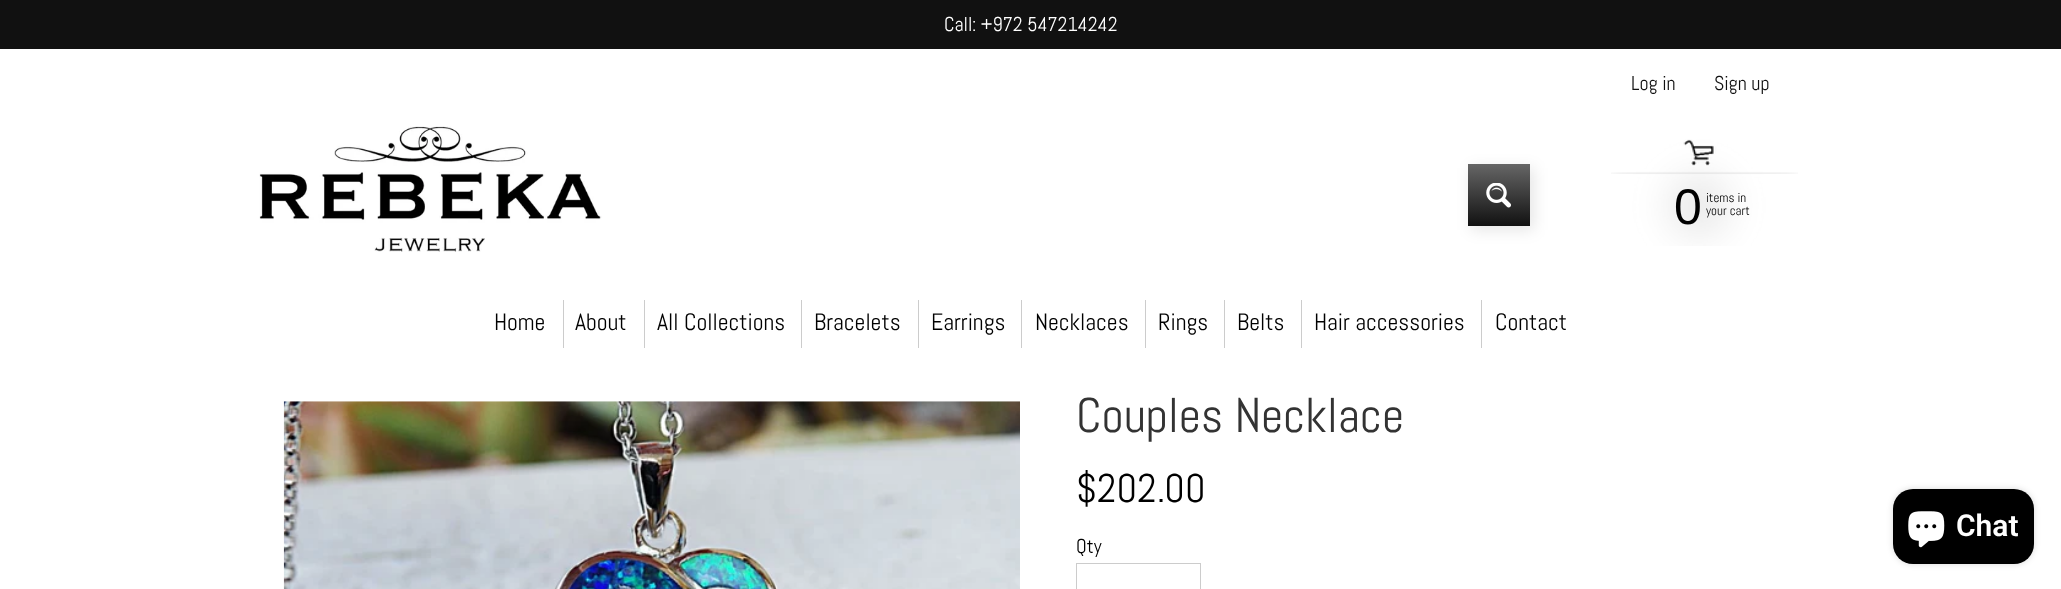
<!DOCTYPE html>
<meta charset="utf-8">
<style>body { margin: 0 } canvas { display: block }</style>
<canvas id="canvas" width="2061" height="589"></canvas>
<script type="module">
  const canvas = document.getElementById("canvas");
  const ctx = canvas.getContext("2d");
  ctx.miterLimit = 4;
  ctx.fontKerning = "normal";
  async function loadImage(src) {
    const img = new Image();
    img.src = src;
    await img.decode();
    return img;
  }
  let gradient;

  ctx.fillStyle = "#ffffff";
  ctx.fillRect(0, 0, 2061, 589);
  ctx.fillStyle = "#111111";
  ctx.fillRect(0, 0, 2061, 49);
  ctx.font = "20px Abel";
  ctx.fillStyle = "#ffffff";
  ctx.fillText("Call: +972 547214242", 944, 31);
  ctx.drawImage(await loadImage("img1.png"), 259, 126, 343, 126);
  ctx.fillStyle = "#111111";
  ctx.fillText("Log in", 1631, 90);
  ctx.fillText("Sign up", 1714, 90);
  ctx.fillStyle = "rgba(0, 0, 0, 0.1)";
  ctx.filter = "blur(7.5px)";
  ctx.beginPath();
  ctx.rect(1471, 168, 63, 62);
  ctx.fill();
  ctx.filter = "none";
  gradient = ctx.createLinearGradient(1499, 164, 1499, 226);
  gradient.addColorStop(0, "#666666");
  gradient.addColorStop(1, "#111111");
  ctx.fillStyle = gradient;
  ctx.fillRect(1468, 164, 62, 62);
  ctx.drawImage(await loadImage("img2.png"), 1486, 183, 25, 25);
  ctx.drawImage(await loadImage("img3.png"), 1611, 139, 187, 107);
  ctx.font = "50px Liberation Sans";
  ctx.fillStyle = "#000000";
  ctx.fillText("0", 1674, 224);
  ctx.font = "13px Abel";
  ctx.fillText("items in", 1706, 202);
  ctx.fillText("your cart", 1706, 215);
  ctx.font = "23.75px Abel";
  ctx.fillText("Home", 494, 330);
  ctx.fillStyle = "#cccccc";
  ctx.fillRect(563, 300, 1, 48);
  ctx.fillStyle = "#000000";
  ctx.fillText("About", 575, 330);
  ctx.fillStyle = "#cccccc";
  ctx.fillRect(644, 300, 1, 48);
  ctx.fillStyle = "#000000";
  ctx.fillText("All Collections", 657, 330);
  ctx.fillStyle = "#cccccc";
  ctx.fillRect(801, 300, 1, 48);
  ctx.fillStyle = "#000000";
  ctx.fillText("Bracelets", 814, 330);
  ctx.fillStyle = "#cccccc";
  ctx.fillRect(918, 300, 1, 48);
  ctx.fillStyle = "#000000";
  ctx.fillText("Earrings", 931, 330);
  ctx.fillStyle = "#cccccc";
  ctx.fillRect(1021, 300, 1, 48);
  ctx.fillStyle = "#000000";
  ctx.fillText("Necklaces", 1035, 330);
  ctx.fillStyle = "#cccccc";
  ctx.fillRect(1145, 300, 1, 48);
  ctx.fillStyle = "#000000";
  ctx.fillText("Rings", 1158, 330);
  ctx.fillStyle = "#cccccc";
  ctx.fillRect(1224, 300, 1, 48);
  ctx.fillStyle = "#000000";
  ctx.fillText("Belts", 1237, 330);
  ctx.fillStyle = "#cccccc";
  ctx.fillRect(1301, 300, 1, 48);
  ctx.fillStyle = "#000000";
  ctx.fillText("Hair accessories", 1314, 330);
  ctx.fillStyle = "#cccccc";
  ctx.fillRect(1481, 300, 1, 48);
  ctx.fillStyle = "#000000";
  ctx.fillText("Contact", 1495, 330);
  ctx.drawImage(await loadImage("img4.png"), 283, 401, 737, 188);
  ctx.font = "48.75px Abel";
  ctx.fillStyle = "#333333";
  ctx.fillText("Couples Necklace", 1076, 432);
  ctx.font = "40px Abel";
  ctx.fillStyle = "#000000";
  ctx.fillText("$202.00", 1076, 502);
  ctx.font = "20px Abel";
  ctx.fillText("Qty", 1076, 553);
  ctx.strokeStyle = "#cccccc";
  ctx.strokeRect(1076.5, 563.5, 124, 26);
  ctx.fillStyle = "rgba(0, 0, 0, 0.15)";
  ctx.filter = "blur(3px)";
  ctx.beginPath();
  ctx.roundRect(1893, 489, 141, 75, 20);
  ctx.fill();
  ctx.filter = "none";
  ctx.fillStyle = "#000000";
  ctx.beginPath();
  ctx.roundRect(1893, 489, 141, 75, 20);
  ctx.fill();
  ctx.drawImage(await loadImage("img5.png"), 1908, 511, 37, 37);
  ctx.font = "600 30px Roboto";
  ctx.fillStyle = "#ffffff";
  ctx.fillText("Chat", 1956, 536);
</script>
